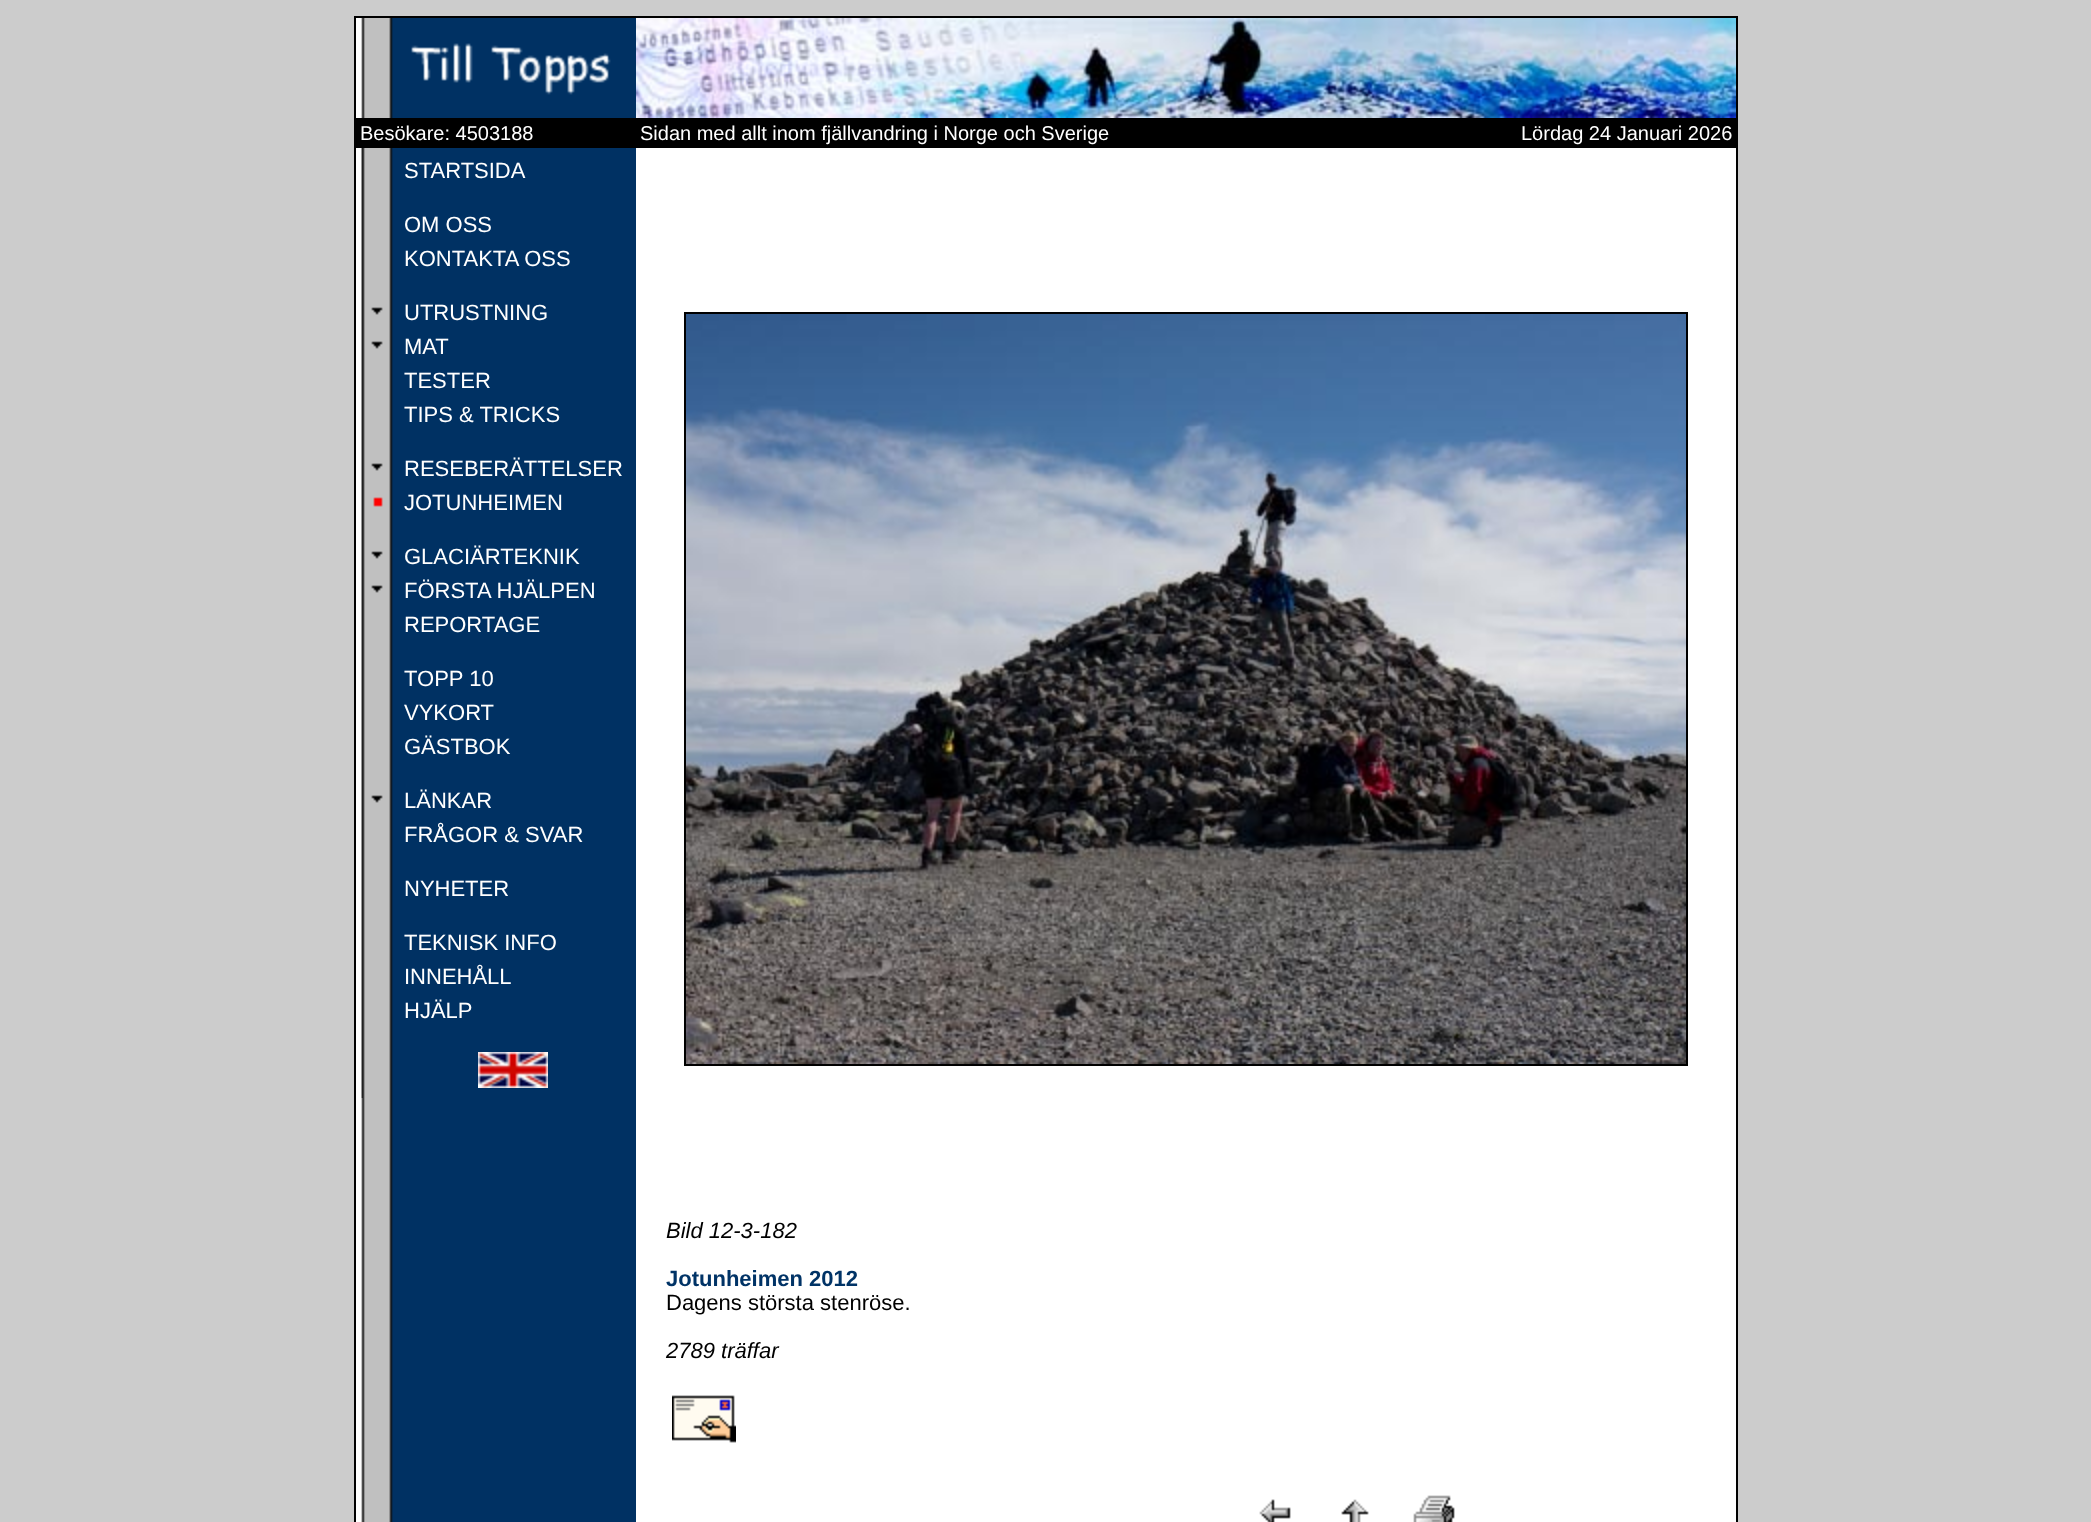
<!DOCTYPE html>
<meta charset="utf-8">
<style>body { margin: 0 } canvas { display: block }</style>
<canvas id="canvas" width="2091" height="1522"></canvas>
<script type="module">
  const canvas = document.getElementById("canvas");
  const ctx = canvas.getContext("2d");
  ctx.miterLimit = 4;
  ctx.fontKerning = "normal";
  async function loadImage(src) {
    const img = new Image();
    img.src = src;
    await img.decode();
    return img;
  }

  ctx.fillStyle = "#cccccc";
  ctx.fillRect(0, 0, 2091, 1522);
  ctx.fillStyle = "#000000";
  ctx.fillRect(354, 16, 1384, 1506);
  ctx.fillStyle = "#ffffff";
  ctx.fillRect(356, 18, 1380, 1504);
  ctx.drawImage(await loadImage("img1.png"), 361, 18, 275, 100);
  ctx.drawImage(await loadImage("img2.png"), 636, 18, 1100, 100);
  ctx.fillStyle = "#000000";
  ctx.fillRect(356, 118, 1380, 30);
  ctx.font = "20px Liberation Sans";
  ctx.fillStyle = "#ffffff";
  ctx.fillText("Besökare: 4503188", 360, 140);
  ctx.fillText("Sidan med allt inom fjällvandring i Norge och Sverige", 640, 140);
  ctx.fillText("Lördag 24 Januari 2026", 1521, 140);
  ctx.drawImage(await loadImage("img3.png"), 361, 148, 275, 1374);
  ctx.drawImage(await loadImage("img4.png"), 361, 148, 2, 950);
  ctx.font = "22px Liberation Sans";
  ctx.fillText("STARTSIDA", 404, 178);
  ctx.fillText("OM OSS", 404, 232);
  ctx.fillText("KONTAKTA OSS", 404, 266);
  ctx.drawImage(await loadImage("img5.png"), 371, 307, 12, 8);
  ctx.fillText("UTRUSTNING", 404, 320);
  ctx.drawImage(await loadImage("img5.png"), 371, 341, 12, 8);
  ctx.fillText("MAT", 404, 354);
  ctx.fillText("TESTER", 404, 388);
  ctx.fillText("TIPS & TRICKS", 404, 422);
  ctx.drawImage(await loadImage("img5.png"), 371, 463, 12, 8);
  ctx.fillText("RESEBERÄTTELSER", 404, 476);
  ctx.drawImage(await loadImage("img6.png"), 373, 497, 10, 10);
  ctx.fillText("JOTUNHEIMEN", 404, 510);
  ctx.drawImage(await loadImage("img5.png"), 371, 551, 12, 8);
  ctx.fillText("GLACIÄRTEKNIK", 404, 564);
  ctx.drawImage(await loadImage("img5.png"), 371, 585, 12, 8);
  ctx.fillText("FÖRSTA HJÄLPEN", 404, 598);
  ctx.fillText("REPORTAGE", 404, 632);
  ctx.fillText("TOPP 10", 404, 686);
  ctx.fillText("VYKORT", 404, 720);
  ctx.fillText("GÄSTBOK", 404, 754);
  ctx.drawImage(await loadImage("img5.png"), 371, 795, 12, 8);
  ctx.fillText("LÄNKAR", 404, 808);
  ctx.fillText("FRÅGOR & SVAR", 404, 842);
  ctx.fillText("NYHETER", 404, 896);
  ctx.fillText("TEKNISK INFO", 404, 950);
  ctx.fillText("INNEHÅLL", 404, 984);
  ctx.fillText("HJÄLP", 404, 1018);
  ctx.drawImage(await loadImage("img7.png"), 478, 1052, 70, 36);
  ctx.strokeStyle = "#000000";
  ctx.lineWidth = 2;
  ctx.strokeRect(685, 313, 1002, 752);
  ctx.drawImage(await loadImage("img8.png"), 686, 314, 1000, 750);
  ctx.font = "italic 22px Liberation Sans";
  ctx.fillStyle = "#000000";
  ctx.fillText("Bild 12-3-182", 666, 1238);
  ctx.font = "bold 22px Liberation Sans";
  ctx.fillStyle = "#003366";
  ctx.fillText("Jotunheimen 2012", 666, 1286);
  ctx.font = "22px Liberation Sans";
  ctx.fillStyle = "#000000";
  ctx.fillText("Dagens största stenröse.", 666, 1310);
  ctx.font = "italic 22px Liberation Sans";
  ctx.fillText("2789 träffar", 666, 1358);
  ctx.drawImage(await loadImage("img9.png"), 672, 1395, 64, 48);
  ctx.drawImage(await loadImage("img10.png"), 1259, 1499, 32, 23);
  ctx.drawImage(await loadImage("img11.png"), 1341, 1499, 28, 23);
  ctx.drawImage(await loadImage("img12.png"), 1413, 1495, 42, 27);
</script>
